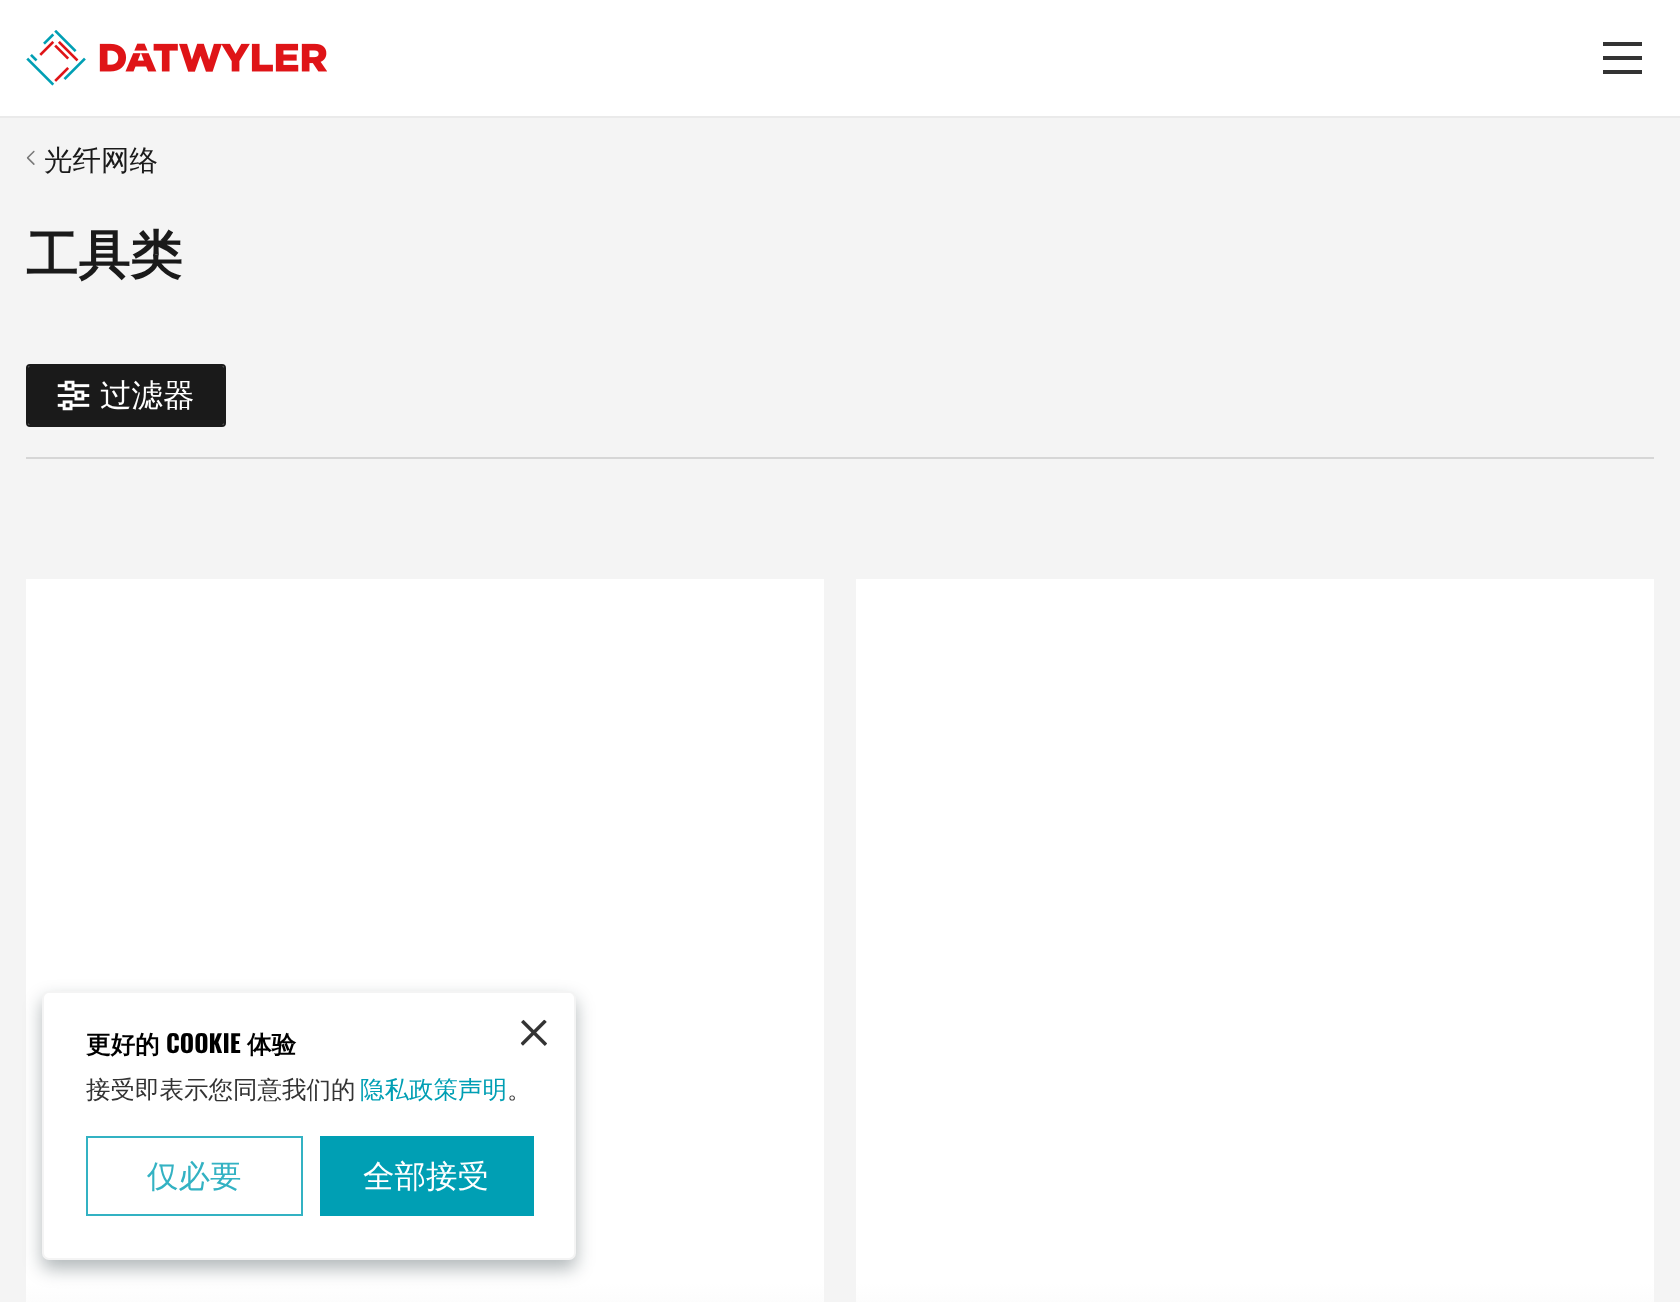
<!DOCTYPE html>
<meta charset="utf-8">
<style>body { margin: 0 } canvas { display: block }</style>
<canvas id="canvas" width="1680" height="1302"></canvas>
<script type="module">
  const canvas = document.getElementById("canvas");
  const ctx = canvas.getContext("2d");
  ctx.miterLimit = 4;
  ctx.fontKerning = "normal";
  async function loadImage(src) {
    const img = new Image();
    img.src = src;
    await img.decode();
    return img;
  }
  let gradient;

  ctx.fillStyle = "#f4f4f4";
  ctx.fillRect(0, 0, 1680, 1302);
  ctx.fillStyle = "#ffffff";
  ctx.fillRect(0, 0, 1680, 116);
  ctx.fillStyle = "#eaeaea";
  ctx.fillRect(0, 116, 1680, 2);
  ctx.drawImage(await loadImage("img1.png"), 26, 30, 301, 56);
  ctx.fillStyle = "#333333";
  ctx.fillRect(1603, 42, 39, 4);
  ctx.fillRect(1603, 56, 39, 4);
  ctx.fillRect(1603, 70, 39, 4);
  ctx.drawImage(await loadImage("img2.png"), 26, 150, 9, 15);
  ctx.font = "500 28.5px WenQuanYi Zen Hei";
  ctx.fillStyle = "#1a1a1a";
  ctx.fillText("光纤网络", 44, 170);
  ctx.font = "bold 52px WenQuanYi Zen Hei";
  ctx.fillText("工具类", 26, 273);
  ctx.fillStyle = "#d6d6d6";
  ctx.fillRect(26, 457, 1628, 2);
  ctx.beginPath();
  ctx.roundRect(27, 365, 198, 61, 3);
  ctx.strokeStyle = "#1a1a1a";
  ctx.lineWidth = 2;
  ctx.stroke();
  ctx.fillStyle = "#1a1a1a";
  ctx.beginPath();
  ctx.roundRect(28, 366, 196, 59, 2);
  ctx.fill();
  ctx.drawImage(await loadImage("img3.png"), 57, 380, 33, 31);
  ctx.font = "500 31.5px WenQuanYi Zen Hei";
  ctx.fillStyle = "#ffffff";
  ctx.fillText("过滤器", 100, 406);
  ctx.fillRect(26, 579, 798, 704);
  gradient = ctx.createLinearGradient(425, 1283, 425, 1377);
  gradient.addColorStop(0, "#ffffff");
  gradient.addColorStop(1, "#f2f2f2");
  ctx.fillStyle = gradient;
  ctx.fillRect(26, 1283, 798, 19);
  ctx.fillStyle = "#ffffff";
  ctx.fillRect(856, 579, 798, 704);
  gradient = ctx.createLinearGradient(1255, 1283, 1255, 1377);
  gradient.addColorStop(0, "#ffffff");
  gradient.addColorStop(1, "#f2f2f2");
  ctx.fillStyle = gradient;
  ctx.fillRect(856, 1283, 798, 19);
  ctx.fillStyle = "rgba(0, 20, 28, 0.3)";
  ctx.filter = "blur(9px)";
  ctx.beginPath();
  ctx.roundRect(42, 999, 534, 270, 7);
  ctx.fill();
  ctx.filter = "none";
  ctx.fillStyle = "#ffffff";
  ctx.beginPath();
  ctx.roundRect(43, 992, 532, 267, 6);
  ctx.fill();
  ctx.strokeStyle = "#f4f4f4";
  ctx.stroke();
  ctx.font = "bold 24.5px WenQuanYi Zen Hei";
  ctx.fillStyle = "#000000";
  ctx.fillText("更好的", 86, 1053);
  ctx.font = "bold 24.5px Oswald";
  ctx.fillText("COOKIE", 166, 1053);
  ctx.font = "bold 24.5px WenQuanYi Zen Hei";
  ctx.fillText("体验", 247, 1053);
  ctx.font = "500 24.5px WenQuanYi Zen Hei";
  ctx.fillStyle = "#333333";
  ctx.fillText("接受即表示您同意我们的", 86, 1098);
  ctx.fillStyle = "#009fb4";
  ctx.fillText("隐私政策声明", 360, 1098);
  ctx.fillStyle = "#333333";
  ctx.fillText("。", 507, 1098);
  ctx.drawImage(await loadImage("img4.png"), 520, 1019, 27, 27);
  ctx.strokeStyle = "#33b2c3";
  ctx.strokeRect(87, 1137, 215, 78);
  ctx.font = "500 31.5px WenQuanYi Zen Hei";
  ctx.fillStyle = "#33b2c3";
  ctx.fillText("仅必要", 147, 1187);
  ctx.fillStyle = "#009fb4";
  ctx.fillRect(320, 1136, 214, 80);
  ctx.fillStyle = "#ffffff";
  ctx.fillText("全部接受", 363, 1187);
</script>
